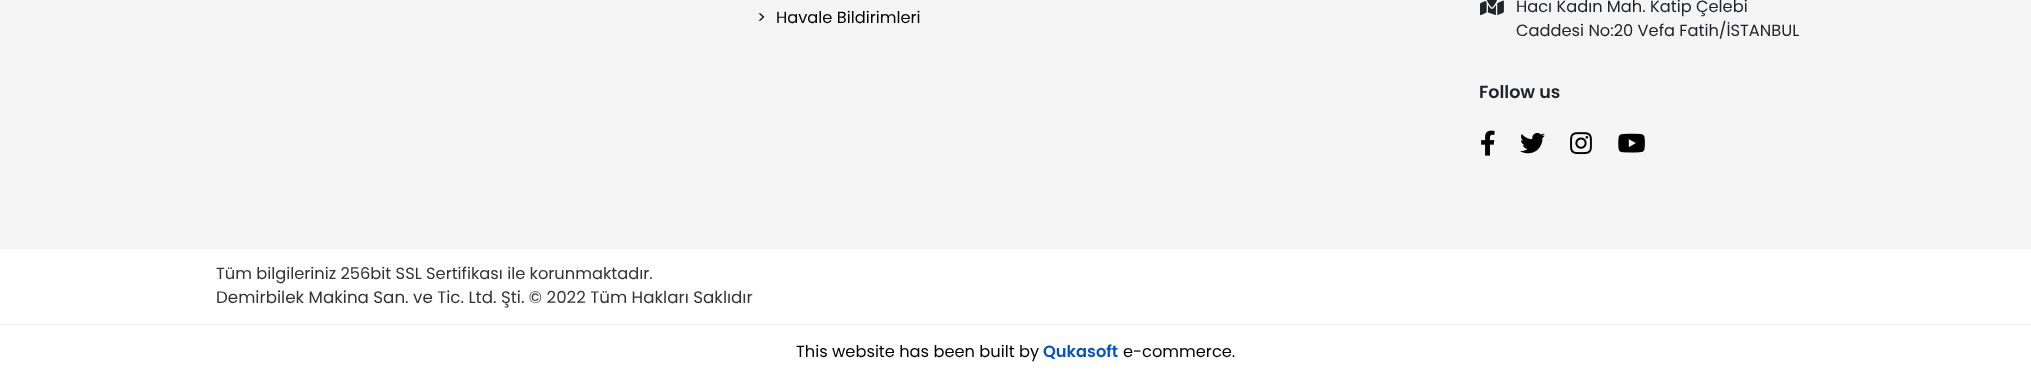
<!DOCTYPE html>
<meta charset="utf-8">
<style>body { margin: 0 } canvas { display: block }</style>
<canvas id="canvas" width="2031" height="379"></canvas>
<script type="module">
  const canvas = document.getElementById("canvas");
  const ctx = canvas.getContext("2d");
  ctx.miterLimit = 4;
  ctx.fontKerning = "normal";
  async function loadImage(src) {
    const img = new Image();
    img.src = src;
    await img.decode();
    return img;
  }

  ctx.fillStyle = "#ffffff";
  ctx.fillRect(0, 0, 2031, 379);
  ctx.fillStyle = "#f5f5f5";
  ctx.fillRect(0, 0, 2031, 249);
  ctx.font = "16.25px Poppins";
  ctx.fillStyle = "#000000";
  ctx.fillText(">", 757, 23);
  ctx.fillText("Havale Bildirimleri", 776, 23);
  ctx.drawImage(await loadImage("img1.png"), 1480, 0, 24, 16);
  ctx.fillStyle = "#212529";
  ctx.fillText("Hacı Kadın Mah. Katip Çelebi", 1516, 12);
  ctx.fillText("Caddesi No:20 Vefa Fatih/İSTANBUL", 1516, 36);
  ctx.font = "600 17.5px Poppins";
  ctx.fillText("Follow us", 1479, 98);
  ctx.drawImage(await loadImage("img2.png"), 1481, 130, 14, 26);
  ctx.drawImage(await loadImage("img3.png"), 1520, 133, 25, 21);
  ctx.drawImage(await loadImage("img4.png"), 1570, 132, 22, 23);
  ctx.drawImage(await loadImage("img5.png"), 1618, 133, 27, 20);
  ctx.font = "16.25px Poppins";
  ctx.fillStyle = "#333333";
  ctx.fillText("Tüm bilgileriniz 256bit SSL Sertifikası ile korunmaktadır.", 216, 279);
  ctx.font = "16.7px Poppins";
  ctx.fillText("Demirbilek Makina San. ve Tic. Ltd. Şti. © 2022 Tüm Hakları Saklıdır", 216, 303);
  ctx.fillStyle = "#eeeeee";
  ctx.fillRect(0, 324, 2031, 1);
  ctx.font = "16.25px Poppins";
  ctx.fillStyle = "#000000";
  ctx.fillText("This website has been built by", 796, 357);
  ctx.font = "600 16.25px Poppins";
  ctx.fillStyle = "#0552c6";
  ctx.fillText("Qukasoft", 1043, 357);
  ctx.font = "16.25px Poppins";
  ctx.fillStyle = "#000000";
  ctx.fillText("e-commerce.", 1123, 357);
</script>
